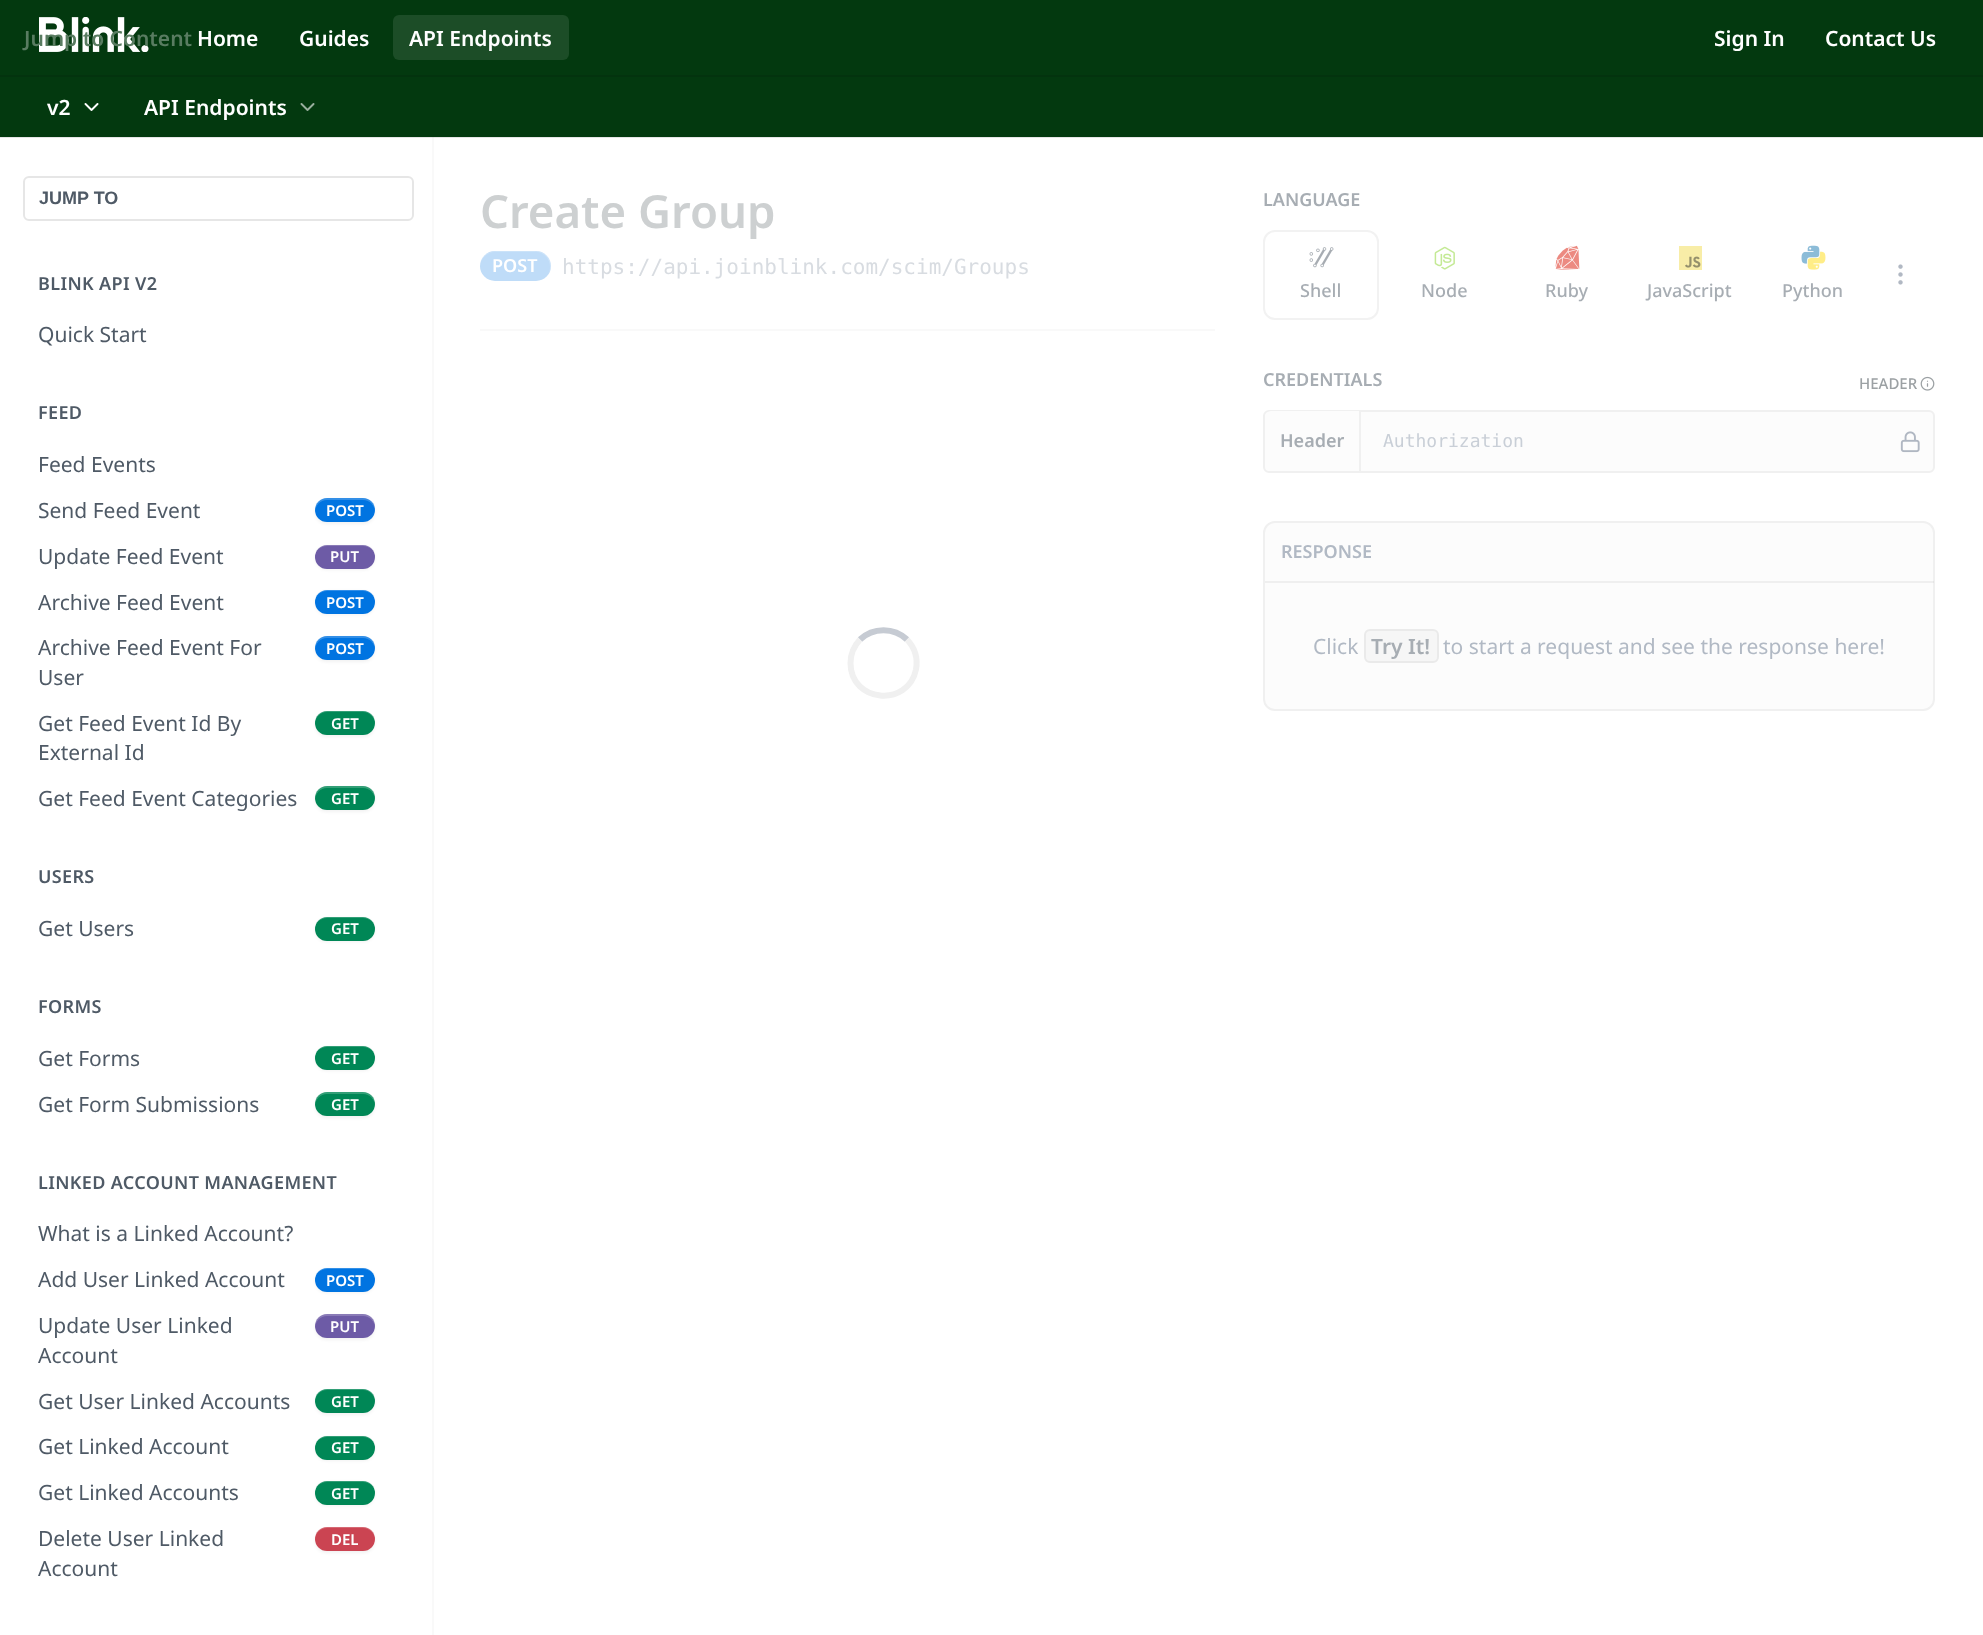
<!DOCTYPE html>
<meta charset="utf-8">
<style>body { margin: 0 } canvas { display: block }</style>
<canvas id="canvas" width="1983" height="1635"></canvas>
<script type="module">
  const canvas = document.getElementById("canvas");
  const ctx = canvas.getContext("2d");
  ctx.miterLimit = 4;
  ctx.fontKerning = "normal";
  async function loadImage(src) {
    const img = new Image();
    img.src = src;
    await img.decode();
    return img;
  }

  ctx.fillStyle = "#ffffff";
  ctx.fillRect(0, 0, 1983, 1635);
  ctx.fillStyle = "#f9f9f9";
  ctx.beginPath();
  ctx.moveTo(2, 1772);
  ctx.lineTo(434, 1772);
  ctx.lineTo(434, 137);
  ctx.lineTo(432, 137);
  ctx.lineTo(432, 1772);
  ctx.closePath();
  ctx.fill();
  ctx.fillStyle = "rgba(0, 0, 0, 0.1)";
  ctx.fillRect(0, 137, 1983, 1);
  ctx.fillStyle = "#03390f";
  ctx.fillRect(0, 0, 1983, 137);
  ctx.fillStyle = "#03330e";
  ctx.fillRect(0, 75, 1983, 2);
  ctx.drawImage(await loadImage("img1.png"), 39, 17, 110, 35);
  ctx.font = "600 21px Noto Sans";
  ctx.fillStyle = "#597c61";
  ctx.fillText("Jump to Content", 24, 46);
  ctx.fillStyle = "#ffffff";
  ctx.fillText("Home", 197, 46);
  ctx.fillText("Guides", 299, 46);
  ctx.fillStyle = "#1c4d27";
  ctx.beginPath();
  ctx.roundRect(393, 15, 176, 45, 6);
  ctx.fill();
  ctx.fillStyle = "#ffffff";
  ctx.fillText("API Endpoints", 409, 46);
  ctx.fillText("Sign In", 1714, 46);
  ctx.fillText("Contact Us", 1825, 46);
  ctx.fillText("v2", 47, 115);
  ctx.drawImage(await loadImage("img2.png"), 84, 103, 15, 8);
  ctx.fillText("API Endpoints", 144, 115);
  ctx.drawImage(await loadImage("img3.png"), 300, 103, 15, 8);
  ctx.beginPath();
  ctx.roundRect(24, 177, 389, 43, 5);
  ctx.strokeStyle = "#e6e6e6";
  ctx.lineWidth = 2;
  ctx.stroke();
  ctx.font = "bold 18px Liberation Sans";
  ctx.fillStyle = "#4f5a66";
  ctx.fillText("JUMP TO", 39, 204);
  ctx.letterSpacing = "0.35px";
  ctx.font = "600 18px Noto Sans";
  ctx.fillText("BLINK API V2", 38, 290);
  ctx.letterSpacing = "0px";
  ctx.font = "21px Noto Sans";
  ctx.fillText("Quick Start", 38, 342);
  ctx.letterSpacing = "0.35px";
  ctx.font = "600 18px Noto Sans";
  ctx.fillText("FEED", 38, 419);
  ctx.letterSpacing = "0px";
  ctx.font = "21px Noto Sans";
  ctx.fillText("Feed Events", 38, 472);
  ctx.fillText("Send Feed Event", 38, 518);
  ctx.fillStyle = "rgba(0, 0, 0, 0.05)";
  ctx.filter = "blur(1.5px)";
  ctx.beginPath();
  ctx.roundRect(315, 500, 60, 24, 12);
  ctx.fill();
  ctx.filter = "none";
  ctx.fillStyle = "#0074e1";
  ctx.beginPath();
  ctx.roundRect(315, 498, 60, 24, 12);
  ctx.fill();
  ctx.fillStyle = "rgba(255, 255, 255, 0.2)";
  ctx.beginPath();
  ctx.moveTo(327, 500);
  ctx.lineTo(363, 500);
  ctx.bezierCurveTo(370, 500, 374, 505, 375, 511);
  ctx.bezierCurveTo(376, 494, 355, 498, 345, 498);
  ctx.bezierCurveTo(335, 498, 314, 494, 315, 511);
  ctx.bezierCurveTo(316, 505, 320, 500, 327, 500);
  ctx.closePath();
  ctx.fill();
  ctx.font = "600 15px Noto Sans";
  ctx.fillStyle = "#ffffff";
  ctx.fillText("POST", 326, 516);
  ctx.font = "21px Noto Sans";
  ctx.fillStyle = "#4f5a66";
  ctx.fillText("Update Feed Event", 38, 564);
  ctx.fillStyle = "rgba(0, 0, 0, 0.05)";
  ctx.filter = "blur(1.5px)";
  ctx.beginPath();
  ctx.roundRect(315, 546, 60, 24, 12);
  ctx.fill();
  ctx.filter = "none";
  ctx.fillStyle = "#6d5ba6";
  ctx.beginPath();
  ctx.roundRect(315, 545, 60, 24, 12);
  ctx.fill();
  ctx.fillStyle = "rgba(255, 255, 255, 0.2)";
  ctx.beginPath();
  ctx.moveTo(327, 546);
  ctx.lineTo(363, 546);
  ctx.bezierCurveTo(370, 546, 375, 551, 375, 557);
  ctx.bezierCurveTo(376, 541, 355, 545, 345, 545);
  ctx.bezierCurveTo(335, 545, 314, 541, 315, 557);
  ctx.bezierCurveTo(315, 551, 320, 546, 327, 546);
  ctx.closePath();
  ctx.fill();
  ctx.font = "600 15px Noto Sans";
  ctx.fillStyle = "#ffffff";
  ctx.fillText("PUT", 330, 562);
  ctx.font = "21px Noto Sans";
  ctx.fillStyle = "#4f5a66";
  ctx.fillText("Archive Feed Event", 38, 610);
  ctx.fillStyle = "rgba(0, 0, 0, 0.05)";
  ctx.filter = "blur(1.5px)";
  ctx.beginPath();
  ctx.roundRect(315, 591, 60, 24, 12);
  ctx.fill();
  ctx.filter = "none";
  ctx.fillStyle = "#0074e1";
  ctx.beginPath();
  ctx.roundRect(315, 590, 60, 24, 12);
  ctx.fill();
  ctx.fillStyle = "rgba(255, 255, 255, 0.2)";
  ctx.beginPath();
  ctx.moveTo(327, 591);
  ctx.lineTo(363, 591);
  ctx.bezierCurveTo(370, 591, 375, 596, 375, 602);
  ctx.bezierCurveTo(376, 586, 355, 590, 345, 590);
  ctx.bezierCurveTo(335, 590, 314, 586, 315, 602);
  ctx.bezierCurveTo(315, 596, 320, 591, 327, 591);
  ctx.closePath();
  ctx.fill();
  ctx.font = "600 15px Noto Sans";
  ctx.fillStyle = "#ffffff";
  ctx.fillText("POST", 326, 608);
  ctx.font = "21px Noto Sans";
  ctx.fillStyle = "#4f5a66";
  ctx.fillText("Archive Feed Event For", 38, 655);
  ctx.fillText("User", 38, 685);
  ctx.fillStyle = "rgba(0, 0, 0, 0.05)";
  ctx.filter = "blur(1.5px)";
  ctx.beginPath();
  ctx.roundRect(315, 638, 60, 24, 12);
  ctx.fill();
  ctx.filter = "none";
  ctx.fillStyle = "#0074e1";
  ctx.beginPath();
  ctx.roundRect(315, 636, 60, 24, 12);
  ctx.fill();
  ctx.fillStyle = "rgba(255, 255, 255, 0.2)";
  ctx.beginPath();
  ctx.moveTo(327, 638);
  ctx.lineTo(363, 638);
  ctx.bezierCurveTo(370, 638, 374, 643, 375, 649);
  ctx.bezierCurveTo(376, 632, 355, 636, 345, 636);
  ctx.bezierCurveTo(335, 636, 314, 632, 315, 649);
  ctx.bezierCurveTo(316, 643, 320, 638, 327, 638);
  ctx.closePath();
  ctx.fill();
  ctx.font = "600 15px Noto Sans";
  ctx.fillStyle = "#ffffff";
  ctx.fillText("POST", 326, 654);
  ctx.font = "21px Noto Sans";
  ctx.fillStyle = "#4f5a66";
  ctx.fillText("Get Feed Event Id By", 38, 731);
  ctx.fillText("External Id", 38, 760);
  ctx.fillStyle = "rgba(0, 0, 0, 0.05)";
  ctx.filter = "blur(1.5px)";
  ctx.beginPath();
  ctx.roundRect(315, 713, 60, 24, 12);
  ctx.fill();
  ctx.filter = "none";
  ctx.fillStyle = "#008756";
  ctx.beginPath();
  ctx.roundRect(315, 711, 60, 24, 12);
  ctx.fill();
  ctx.fillStyle = "rgba(255, 255, 255, 0.2)";
  ctx.beginPath();
  ctx.moveTo(327, 712);
  ctx.lineTo(363, 712);
  ctx.bezierCurveTo(370, 712, 375, 718, 375, 724);
  ctx.bezierCurveTo(376, 707, 355, 711, 345, 711);
  ctx.bezierCurveTo(335, 711, 314, 707, 315, 724);
  ctx.bezierCurveTo(315, 718, 320, 712, 327, 712);
  ctx.closePath();
  ctx.fill();
  ctx.font = "600 15px Noto Sans";
  ctx.fillStyle = "#ffffff";
  ctx.fillText("GET", 331, 729);
  ctx.font = "21px Noto Sans";
  ctx.fillStyle = "#4f5a66";
  ctx.fillText("Get Feed Event Categories", 38, 806);
  ctx.fillStyle = "rgba(0, 0, 0, 0.05)";
  ctx.filter = "blur(1.5px)";
  ctx.beginPath();
  ctx.roundRect(315, 788, 60, 24, 12);
  ctx.fill();
  ctx.filter = "none";
  ctx.fillStyle = "#008756";
  ctx.beginPath();
  ctx.roundRect(315, 786, 60, 24, 12);
  ctx.fill();
  ctx.fillStyle = "rgba(255, 255, 255, 0.2)";
  ctx.beginPath();
  ctx.moveTo(327, 788);
  ctx.lineTo(363, 788);
  ctx.bezierCurveTo(370, 788, 374, 793, 375, 799);
  ctx.bezierCurveTo(376, 782, 355, 786, 345, 786);
  ctx.bezierCurveTo(335, 786, 314, 782, 315, 799);
  ctx.bezierCurveTo(316, 793, 320, 788, 327, 788);
  ctx.closePath();
  ctx.fill();
  ctx.font = "600 15px Noto Sans";
  ctx.fillStyle = "#ffffff";
  ctx.fillText("GET", 331, 804);
  ctx.letterSpacing = "0.35px";
  ctx.font = "600 18px Noto Sans";
  ctx.fillStyle = "#4f5a66";
  ctx.fillText("USERS", 38, 883);
  ctx.letterSpacing = "0px";
  ctx.font = "21px Noto Sans";
  ctx.fillText("Get Users", 38, 936);
  ctx.fillStyle = "rgba(0, 0, 0, 0.05)";
  ctx.filter = "blur(1.5px)";
  ctx.beginPath();
  ctx.roundRect(315, 918, 60, 24, 12);
  ctx.fill();
  ctx.filter = "none";
  ctx.fillStyle = "#008756";
  ctx.beginPath();
  ctx.roundRect(315, 917, 60, 24, 12);
  ctx.fill();
  ctx.fillStyle = "rgba(255, 255, 255, 0.2)";
  ctx.beginPath();
  ctx.moveTo(327, 918);
  ctx.lineTo(363, 918);
  ctx.bezierCurveTo(370, 918, 375, 923, 375, 929);
  ctx.bezierCurveTo(376, 913, 355, 917, 345, 917);
  ctx.bezierCurveTo(335, 917, 314, 913, 315, 929);
  ctx.bezierCurveTo(315, 923, 320, 918, 327, 918);
  ctx.closePath();
  ctx.fill();
  ctx.font = "600 15px Noto Sans";
  ctx.fillStyle = "#ffffff";
  ctx.fillText("GET", 331, 934);
  ctx.letterSpacing = "0.35px";
  ctx.font = "600 18px Noto Sans";
  ctx.fillStyle = "#4f5a66";
  ctx.fillText("FORMS", 38, 1013);
  ctx.letterSpacing = "0px";
  ctx.font = "21px Noto Sans";
  ctx.fillText("Get Forms", 38, 1066);
  ctx.fillStyle = "rgba(0, 0, 0, 0.05)";
  ctx.filter = "blur(1.5px)";
  ctx.beginPath();
  ctx.roundRect(315, 1047, 60, 24, 12);
  ctx.fill();
  ctx.filter = "none";
  ctx.fillStyle = "#008756";
  ctx.beginPath();
  ctx.roundRect(315, 1046, 60, 24, 12);
  ctx.fill();
  ctx.fillStyle = "rgba(255, 255, 255, 0.2)";
  ctx.beginPath();
  ctx.moveTo(327, 1047);
  ctx.lineTo(363, 1047);
  ctx.bezierCurveTo(370, 1047, 375, 1052, 375, 1058);
  ctx.bezierCurveTo(376, 1042, 355, 1046, 345, 1046);
  ctx.bezierCurveTo(335, 1046, 314, 1042, 315, 1058);
  ctx.bezierCurveTo(315, 1052, 320, 1047, 327, 1047);
  ctx.closePath();
  ctx.fill();
  ctx.font = "600 15px Noto Sans";
  ctx.fillStyle = "#ffffff";
  ctx.fillText("GET", 331, 1064);
  ctx.font = "21px Noto Sans";
  ctx.fillStyle = "#4f5a66";
  ctx.fillText("Get Form Submissions", 38, 1112);
  ctx.fillStyle = "rgba(0, 0, 0, 0.05)";
  ctx.filter = "blur(1.5px)";
  ctx.beginPath();
  ctx.roundRect(315, 1094, 60, 24, 12);
  ctx.fill();
  ctx.filter = "none";
  ctx.fillStyle = "#008756";
  ctx.beginPath();
  ctx.roundRect(315, 1092, 60, 24, 12);
  ctx.fill();
  ctx.fillStyle = "rgba(255, 255, 255, 0.2)";
  ctx.beginPath();
  ctx.moveTo(327, 1094);
  ctx.lineTo(363, 1094);
  ctx.bezierCurveTo(370, 1094, 374, 1099, 375, 1105);
  ctx.bezierCurveTo(376, 1088, 355, 1092, 345, 1092);
  ctx.bezierCurveTo(335, 1092, 314, 1088, 315, 1105);
  ctx.bezierCurveTo(316, 1099, 320, 1094, 327, 1094);
  ctx.closePath();
  ctx.fill();
  ctx.font = "600 15px Noto Sans";
  ctx.fillStyle = "#ffffff";
  ctx.fillText("GET", 331, 1110);
  ctx.letterSpacing = "0.35px";
  ctx.font = "600 18px Noto Sans";
  ctx.fillStyle = "#4f5a66";
  ctx.fillText("LINKED ACCOUNT MANAGEMENT", 38, 1189);
  ctx.letterSpacing = "0px";
  ctx.font = "21px Noto Sans";
  ctx.fillText("What is a Linked Account?", 38, 1241);
  ctx.fillText("Add User Linked Account", 38, 1287);
  ctx.fillStyle = "rgba(0, 0, 0, 0.05)";
  ctx.filter = "blur(1.5px)";
  ctx.beginPath();
  ctx.roundRect(315, 1269, 60, 24, 12);
  ctx.fill();
  ctx.filter = "none";
  ctx.fillStyle = "#0074e1";
  ctx.beginPath();
  ctx.roundRect(315, 1268, 60, 24, 12);
  ctx.fill();
  ctx.fillStyle = "rgba(255, 255, 255, 0.2)";
  ctx.beginPath();
  ctx.moveTo(327, 1269);
  ctx.lineTo(363, 1269);
  ctx.bezierCurveTo(370, 1269, 375, 1274, 375, 1280);
  ctx.bezierCurveTo(376, 1264, 355, 1268, 345, 1268);
  ctx.bezierCurveTo(335, 1268, 314, 1264, 315, 1280);
  ctx.bezierCurveTo(315, 1274, 320, 1269, 327, 1269);
  ctx.closePath();
  ctx.fill();
  ctx.font = "600 15px Noto Sans";
  ctx.fillStyle = "#ffffff";
  ctx.fillText("POST", 326, 1286);
  ctx.font = "21px Noto Sans";
  ctx.fillStyle = "#4f5a66";
  ctx.fillText("Update User Linked", 38, 1333);
  ctx.fillText("Account", 38, 1363);
  ctx.fillStyle = "rgba(0, 0, 0, 0.05)";
  ctx.filter = "blur(1.5px)";
  ctx.beginPath();
  ctx.roundRect(315, 1316, 60, 24, 12);
  ctx.fill();
  ctx.filter = "none";
  ctx.fillStyle = "#6d5ba6";
  ctx.beginPath();
  ctx.roundRect(315, 1314, 60, 24, 12);
  ctx.fill();
  ctx.fillStyle = "rgba(255, 255, 255, 0.2)";
  ctx.beginPath();
  ctx.moveTo(327, 1316);
  ctx.lineTo(363, 1316);
  ctx.bezierCurveTo(370, 1316, 374, 1321, 375, 1327);
  ctx.bezierCurveTo(376, 1310, 355, 1314, 345, 1314);
  ctx.bezierCurveTo(335, 1314, 314, 1310, 315, 1327);
  ctx.bezierCurveTo(316, 1321, 320, 1316, 327, 1316);
  ctx.closePath();
  ctx.fill();
  ctx.font = "600 15px Noto Sans";
  ctx.fillStyle = "#ffffff";
  ctx.fillText("PUT", 330, 1332);
  ctx.font = "21px Noto Sans";
  ctx.fillStyle = "#4f5a66";
  ctx.fillText("Get User Linked Accounts", 38, 1409);
  ctx.fillStyle = "rgba(0, 0, 0, 0.05)";
  ctx.filter = "blur(1.5px)";
  ctx.beginPath();
  ctx.roundRect(315, 1391, 60, 24, 12);
  ctx.fill();
  ctx.filter = "none";
  ctx.fillStyle = "#008756";
  ctx.beginPath();
  ctx.roundRect(315, 1389, 60, 24, 12);
  ctx.fill();
  ctx.fillStyle = "rgba(255, 255, 255, 0.2)";
  ctx.beginPath();
  ctx.moveTo(327, 1390);
  ctx.lineTo(363, 1390);
  ctx.bezierCurveTo(370, 1390, 375, 1396, 375, 1402);
  ctx.bezierCurveTo(376, 1385, 355, 1389, 345, 1389);
  ctx.bezierCurveTo(335, 1389, 314, 1385, 315, 1402);
  ctx.bezierCurveTo(315, 1396, 320, 1390, 327, 1390);
  ctx.closePath();
  ctx.fill();
  ctx.font = "600 15px Noto Sans";
  ctx.fillStyle = "#ffffff";
  ctx.fillText("GET", 331, 1407);
  ctx.font = "21px Noto Sans";
  ctx.fillStyle = "#4f5a66";
  ctx.fillText("Get Linked Account", 38, 1454);
  ctx.fillStyle = "rgba(0, 0, 0, 0.05)";
  ctx.filter = "blur(1.5px)";
  ctx.beginPath();
  ctx.roundRect(315, 1437, 60, 24, 12);
  ctx.fill();
  ctx.filter = "none";
  ctx.fillStyle = "#008756";
  ctx.beginPath();
  ctx.roundRect(315, 1436, 60, 24, 12);
  ctx.fill();
  ctx.fillStyle = "rgba(255, 255, 255, 0.2)";
  ctx.beginPath();
  ctx.moveTo(327, 1437);
  ctx.lineTo(363, 1437);
  ctx.bezierCurveTo(370, 1437, 375, 1442, 375, 1448);
  ctx.bezierCurveTo(376, 1432, 355, 1436, 345, 1436);
  ctx.bezierCurveTo(335, 1436, 314, 1432, 315, 1448);
  ctx.bezierCurveTo(315, 1442, 320, 1437, 327, 1437);
  ctx.closePath();
  ctx.fill();
  ctx.font = "600 15px Noto Sans";
  ctx.fillStyle = "#ffffff";
  ctx.fillText("GET", 331, 1453);
  ctx.font = "21px Noto Sans";
  ctx.fillStyle = "#4f5a66";
  ctx.fillText("Get Linked Accounts", 38, 1500);
  ctx.fillStyle = "rgba(0, 0, 0, 0.05)";
  ctx.filter = "blur(1.5px)";
  ctx.beginPath();
  ctx.roundRect(315, 1482, 60, 24, 12);
  ctx.fill();
  ctx.filter = "none";
  ctx.fillStyle = "#008756";
  ctx.beginPath();
  ctx.roundRect(315, 1481, 60, 24, 12);
  ctx.fill();
  ctx.fillStyle = "rgba(255, 255, 255, 0.2)";
  ctx.beginPath();
  ctx.moveTo(327, 1482);
  ctx.lineTo(363, 1482);
  ctx.bezierCurveTo(370, 1482, 375, 1487, 375, 1493);
  ctx.bezierCurveTo(376, 1477, 355, 1481, 345, 1481);
  ctx.bezierCurveTo(335, 1481, 314, 1477, 315, 1493);
  ctx.bezierCurveTo(315, 1487, 320, 1482, 327, 1482);
  ctx.closePath();
  ctx.fill();
  ctx.font = "600 15px Noto Sans";
  ctx.fillStyle = "#ffffff";
  ctx.fillText("GET", 331, 1499);
  ctx.font = "21px Noto Sans";
  ctx.fillStyle = "#4f5a66";
  ctx.fillText("Delete User Linked", 38, 1546);
  ctx.fillText("Account", 38, 1576);
  ctx.fillStyle = "rgba(0, 0, 0, 0.05)";
  ctx.filter = "blur(1.5px)";
  ctx.beginPath();
  ctx.roundRect(315, 1529, 60, 24, 12);
  ctx.fill();
  ctx.filter = "none";
  ctx.fillStyle = "#cb4452";
  ctx.beginPath();
  ctx.roundRect(315, 1527, 60, 24, 12);
  ctx.fill();
  ctx.fillStyle = "rgba(255, 255, 255, 0.2)";
  ctx.beginPath();
  ctx.moveTo(327, 1528);
  ctx.lineTo(363, 1528);
  ctx.bezierCurveTo(370, 1528, 375, 1534, 375, 1540);
  ctx.bezierCurveTo(376, 1523, 355, 1527, 345, 1527);
  ctx.bezierCurveTo(335, 1527, 314, 1523, 315, 1540);
  ctx.bezierCurveTo(315, 1534, 320, 1528, 327, 1528);
  ctx.closePath();
  ctx.fill();
  ctx.font = "600 15px Noto Sans";
  ctx.fillStyle = "#ffffff";
  ctx.fillText("DEL", 331, 1545);
  ctx.fillStyle = "#f9f9f9";
  ctx.fillRect(480, 329, 735, 2);
  ctx.font = "600 45.5px Noto Sans";
  ctx.fillStyle = "#cdd0d1";
  ctx.fillText("Create Group", 480, 228);
  ctx.fillStyle = "#bfdcf8";
  ctx.beginPath();
  ctx.roundRect(480, 251, 71, 30, 15);
  ctx.fill();
  ctx.fillStyle = "rgba(255, 255, 255, 0.2)";
  ctx.beginPath();
  ctx.moveTo(495, 252);
  ctx.lineTo(536, 252);
  ctx.bezierCurveTo(544, 252, 550, 259, 550, 267);
  ctx.bezierCurveTo(550, 270, 549, 273, 547, 276);
  ctx.bezierCurveTo(550, 272, 552, 268, 551, 263);
  ctx.bezierCurveTo(548, 251, 539, 251, 529, 251);
  ctx.lineTo(516, 251);
  ctx.bezierCurveTo(503, 251, 479, 247, 480, 267);
  ctx.bezierCurveTo(480, 259, 487, 252, 495, 252);
  ctx.closePath();
  ctx.fill();
  ctx.font = "600 18px Noto Sans";
  ctx.fillStyle = "#ffffff";
  ctx.fillText("POST", 492, 272);
  ctx.font = "21px DejaVu Sans Mono";
  ctx.fillStyle = "#d8dce1";
  ctx.fillText("https://api.joinblink.com/scim/Groups", 562, 274);
  ctx.beginPath();
  ctx.moveTo(860, 639.5);
  ctx.bezierCurveTo(873, 627, 894, 627, 907, 639.5);
  ctx.strokeStyle = "#c6cbd3";
  ctx.lineWidth = 6;
  ctx.stroke();
  ctx.beginPath();
  ctx.moveTo(907, 639.5);
  ctx.bezierCurveTo(914.5, 647.5, 918, 658.5, 916, 669.5);
  ctx.bezierCurveTo(908, 708, 850.5, 702.5, 850.5, 663);
  ctx.bezierCurveTo(850.5, 654.5, 854, 646, 860, 639.5);
  ctx.strokeStyle = "#f0f0f0";
  ctx.stroke();
  ctx.font = "600 18px Noto Sans";
  ctx.fillStyle = "#a7adb3";
  ctx.fillText("LANGUAGE", 1263, 206);
  ctx.drawImage(await loadImage("img4.png"), 1898, 264, 5, 21);
  ctx.beginPath();
  ctx.roundRect(1264, 231, 114, 88, 11);
  ctx.strokeStyle = "#f2f2f2";
  ctx.lineWidth = 2;
  ctx.stroke();
  ctx.drawImage(await loadImage("img5.png"), 1309, 247, 25, 21);
  ctx.font = "500 18px Noto Sans";
  ctx.fillText("Shell", 1300, 297);
  ctx.drawImage(await loadImage("img6.png"), 1434, 246, 21, 24);
  ctx.fillText("Node", 1421, 297);
  ctx.drawImage(await loadImage("img7.png"), 1555, 245, 25, 25);
  ctx.fillText("Ruby", 1545, 297);
  ctx.fillStyle = "#f8eda7";
  ctx.fillRect(1679, 246, 23, 24);
  ctx.drawImage(await loadImage("img8.png"), 1685, 256, 16, 12);
  ctx.fillStyle = "#a7adb3";
  ctx.fillText("JavaScript", 1647, 297);
  ctx.drawImage(await loadImage("img9.png"), 1801, 245, 19, 19);
  ctx.drawImage(await loadImage("img10.png"), 1807, 251, 19, 19);
  ctx.fillText("Python", 1782, 297);
  ctx.font = "600 18px Noto Sans";
  ctx.fillText("CREDENTIALS", 1263, 386);
  ctx.font = "500 15px Noto Sans";
  ctx.fillStyle = "#9ca1a4";
  ctx.fillText("HEADER", 1859, 389);
  ctx.drawImage(await loadImage("img11.png"), 1920, 376, 15, 15);
  ctx.fillStyle = "#fcfcfc";
  ctx.beginPath();
  ctx.roundRect(1264, 411, 670, 61, 5);
  ctx.fill();
  ctx.strokeStyle = "#f0f0f0";
  ctx.stroke();
  ctx.beginPath();
  ctx.roundRect(1265, 411, 96, 60, [6, 0, 0, 6]);
  ctx.fill();
  ctx.fillStyle = "#f0f0f0";
  ctx.fillRect(1359, 411, 2, 60);
  ctx.font = "600 18px Noto Sans";
  ctx.fillStyle = "#a7adb3";
  ctx.fillText("Header", 1280, 447);
  ctx.font = "18px DejaVu Sans Mono";
  ctx.fillStyle = "#c9cfd7";
  ctx.fillText("Authorization", 1383, 447);
  ctx.drawImage(await loadImage("img12.png"), 1900, 431, 20, 22);
  ctx.fillStyle = "#fcfcfc";
  ctx.beginPath();
  ctx.roundRect(1264, 522, 670, 188, 11);
  ctx.fill();
  ctx.stroke();
  ctx.fillStyle = "rgba(128, 128, 128, 0.1)";
  ctx.fillRect(1265, 581, 669, 2);
  ctx.font = "600 18px Noto Sans";
  ctx.fillStyle = "#b1b9c4";
  ctx.fillText("RESPONSE", 1281, 558);
  ctx.font = "21px Noto Sans";
  ctx.fillText("Click", 1313, 654);
  ctx.fillStyle = "#f6f6f6";
  ctx.beginPath();
  ctx.roundRect(1365, 630, 73, 32, 5);
  ctx.fill();
  ctx.strokeStyle = "#eaeaea";
  ctx.stroke();
  ctx.font = "600 21px Noto Sans";
  ctx.fillStyle = "#a7adb3";
  ctx.fillText("Try It!", 1371, 654);
  ctx.font = "21px Noto Sans";
  ctx.fillStyle = "#b1b9c4";
  ctx.fillText("to start a request and see the response here!", 1443, 654);
</script>
